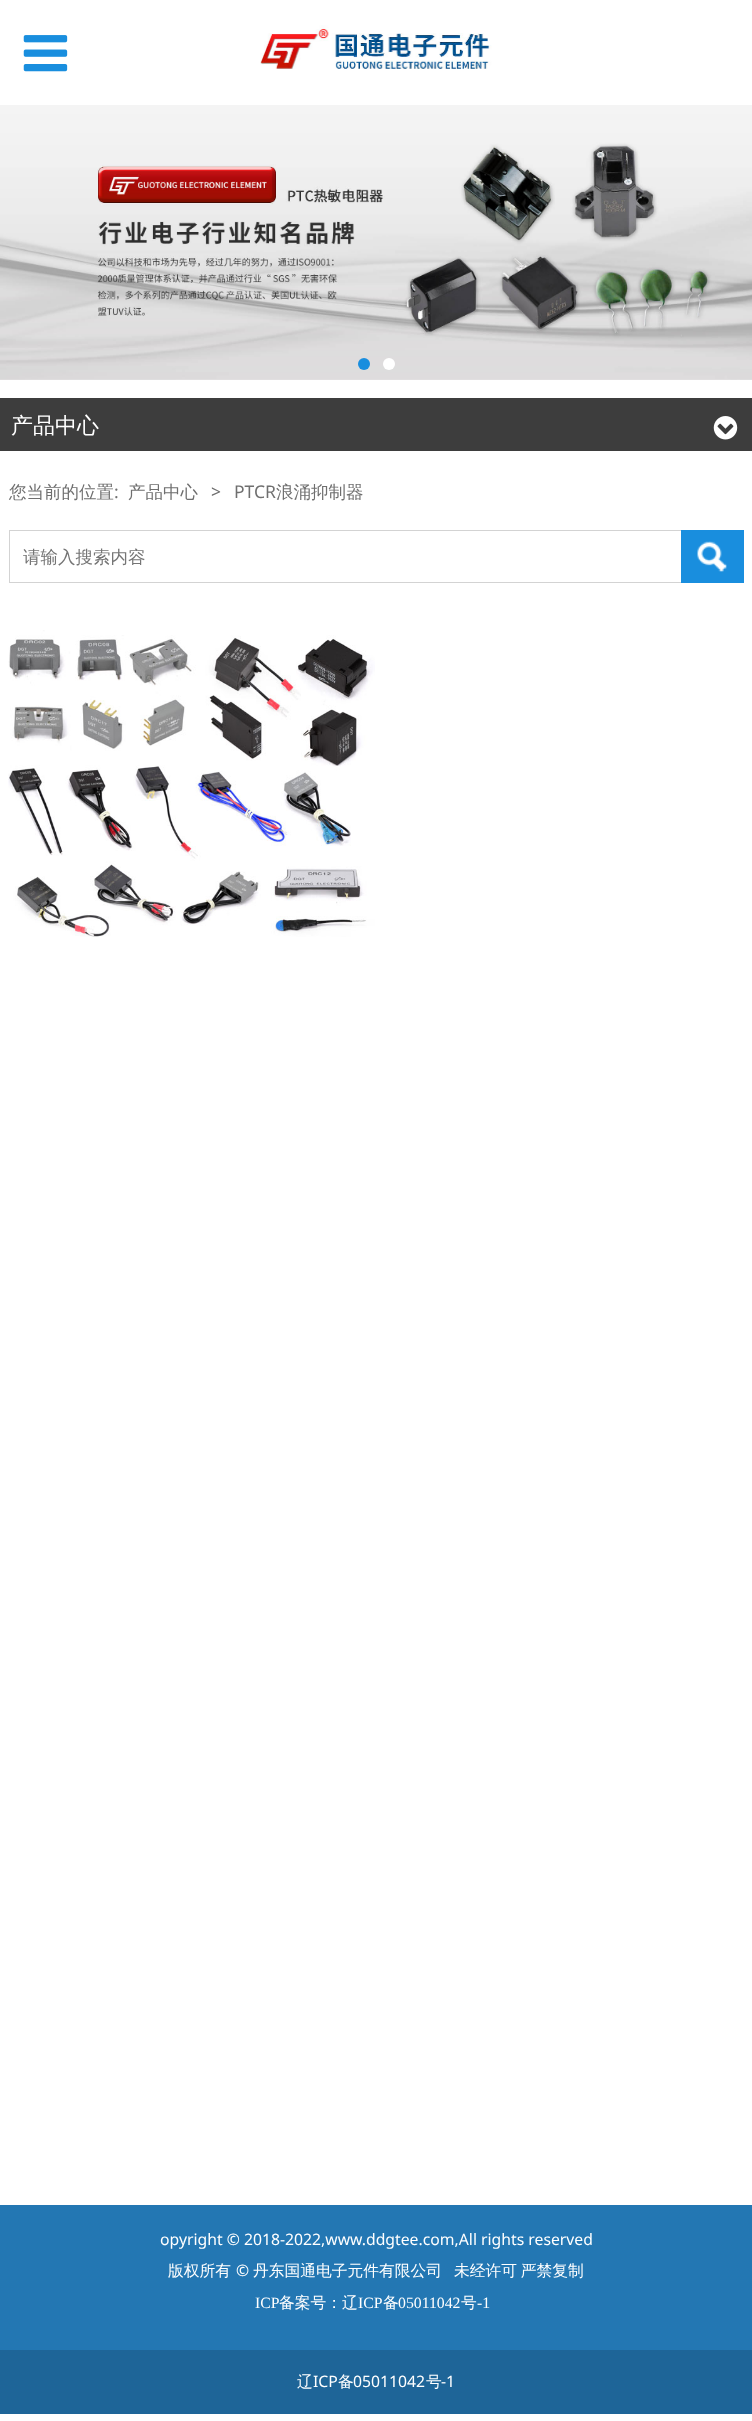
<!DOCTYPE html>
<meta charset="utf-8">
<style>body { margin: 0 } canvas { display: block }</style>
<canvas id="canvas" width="752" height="2421"></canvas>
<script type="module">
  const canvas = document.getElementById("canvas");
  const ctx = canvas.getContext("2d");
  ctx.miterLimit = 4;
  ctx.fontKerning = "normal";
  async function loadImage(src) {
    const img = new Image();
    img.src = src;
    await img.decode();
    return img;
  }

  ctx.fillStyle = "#ffffff";
  ctx.fillRect(0, 0, 752, 2421);
  ctx.drawImage(await loadImage("img1.png"), 23, 35, 45, 37);
  ctx.drawImage(await loadImage("img2.png"), 260, 25, 232, 44);
  ctx.drawImage(await loadImage("img3.png"), 0, 105, 752, 275);
  ctx.fillStyle = "#198ede";
  ctx.beginPath();
  ctx.arc(364, 364, 6, 0, Math.PI * 2);
  ctx.fill();
  ctx.fillStyle = "#ffffff";
  ctx.beginPath();
  ctx.arc(389, 364, 6, 0, Math.PI * 2);
  ctx.fill();
  ctx.fillStyle = "#3d3d3d";
  ctx.fillRect(0, 398, 752, 53);
  ctx.font = "500 22px WenQuanYi Zen Hei";
  ctx.fillStyle = "#ffffff";
  ctx.fillText("产品中心", 11, 433);
  ctx.drawImage(await loadImage("img4.png"), 713, 416, 25, 24);
  ctx.font = "500 17.5px WenQuanYi Zen Hei";
  ctx.fillStyle = "#6f6f6f";
  ctx.fillText("您当前的位置", 9, 498);
  ctx.font = "17.5px Noto Sans";
  ctx.fillText(":", 114, 498);
  ctx.font = "500 17.5px WenQuanYi Zen Hei";
  ctx.fillText("产品中心", 128, 498);
  ctx.font = "17.5px Noto Sans";
  ctx.fillText(">", 211, 498);
  ctx.fillText("PTCR", 234, 498);
  ctx.font = "500 17.5px WenQuanYi Zen Hei";
  ctx.fillText("浪涌抑制器", 276, 498);
  ctx.strokeStyle = "#d3d3d3";
  ctx.strokeRect(9.5, 530.5, 734, 52);
  ctx.fillStyle = "#757575";
  ctx.fillText("请输入搜索内容", 23, 563);
  ctx.fillStyle = "#198ede";
  ctx.fillRect(681, 530, 63, 53);
  ctx.drawImage(await loadImage("img5.png"), 697, 541, 30, 31);
  ctx.drawImage(await loadImage("img6.png"), 8, 630, 367, 307);
  ctx.fillStyle = "#2377b3";
  ctx.fillRect(0, 2205, 752, 145);
  ctx.font = "15.75px Noto Sans";
  ctx.fillStyle = "#ffffff";
  ctx.fillText("opyright © 2018-2022,www.ddgtee.com,All rights reserved", 160, 2245);
  ctx.font = "500 15.75px WenQuanYi Zen Hei";
  ctx.fillText("版权所有", 168, 2276);
  ctx.font = "15.75px Noto Sans";
  ctx.fillText("©", 236, 2276);
  ctx.font = "500 15.75px WenQuanYi Zen Hei";
  ctx.fillText("丹东国通电子元件有限公司", 253, 2276);
  ctx.wordSpacing = "-1px";
  ctx.fillText("未经许可 严禁复制", 454, 2276);
  ctx.wordSpacing = "0px";
  ctx.font = "15.75px Liberation Serif";
  ctx.fillText("ICP", 255, 2308);
  ctx.font = "500 15.75px WenQuanYi Zen Hei";
  ctx.fillText("备案号：辽", 279, 2308);
  ctx.font = "15.75px Liberation Serif";
  ctx.fillText("ICP", 358, 2308);
  ctx.font = "500 15.75px WenQuanYi Zen Hei";
  ctx.fillText("备", 383, 2308);
  ctx.font = "15.75px Liberation Serif";
  ctx.fillText("05011042", 398, 2308);
  ctx.font = "500 15.75px WenQuanYi Zen Hei";
  ctx.fillText("号", 461, 2308);
  ctx.font = "15.75px Liberation Serif";
  ctx.fillText("-1", 477, 2308);
  ctx.fillStyle = "#1e6598";
  ctx.fillRect(0, 2350, 752, 64);
  ctx.font = "500 15.75px WenQuanYi Zen Hei";
  ctx.fillStyle = "#ffffff";
  ctx.fillText("辽", 297, 2387);
  ctx.font = "15.75px Noto Sans";
  ctx.fillText("ICP", 313, 2387);
  ctx.font = "500 15.75px WenQuanYi Zen Hei";
  ctx.fillText("备", 338, 2387);
  ctx.font = "15.75px Noto Sans";
  ctx.fillText("05011042", 353, 2387);
  ctx.font = "500 15.75px WenQuanYi Zen Hei";
  ctx.fillText("号", 426, 2387);
  ctx.font = "15.75px Noto Sans";
  ctx.fillText("-1", 441, 2387);
</script>
